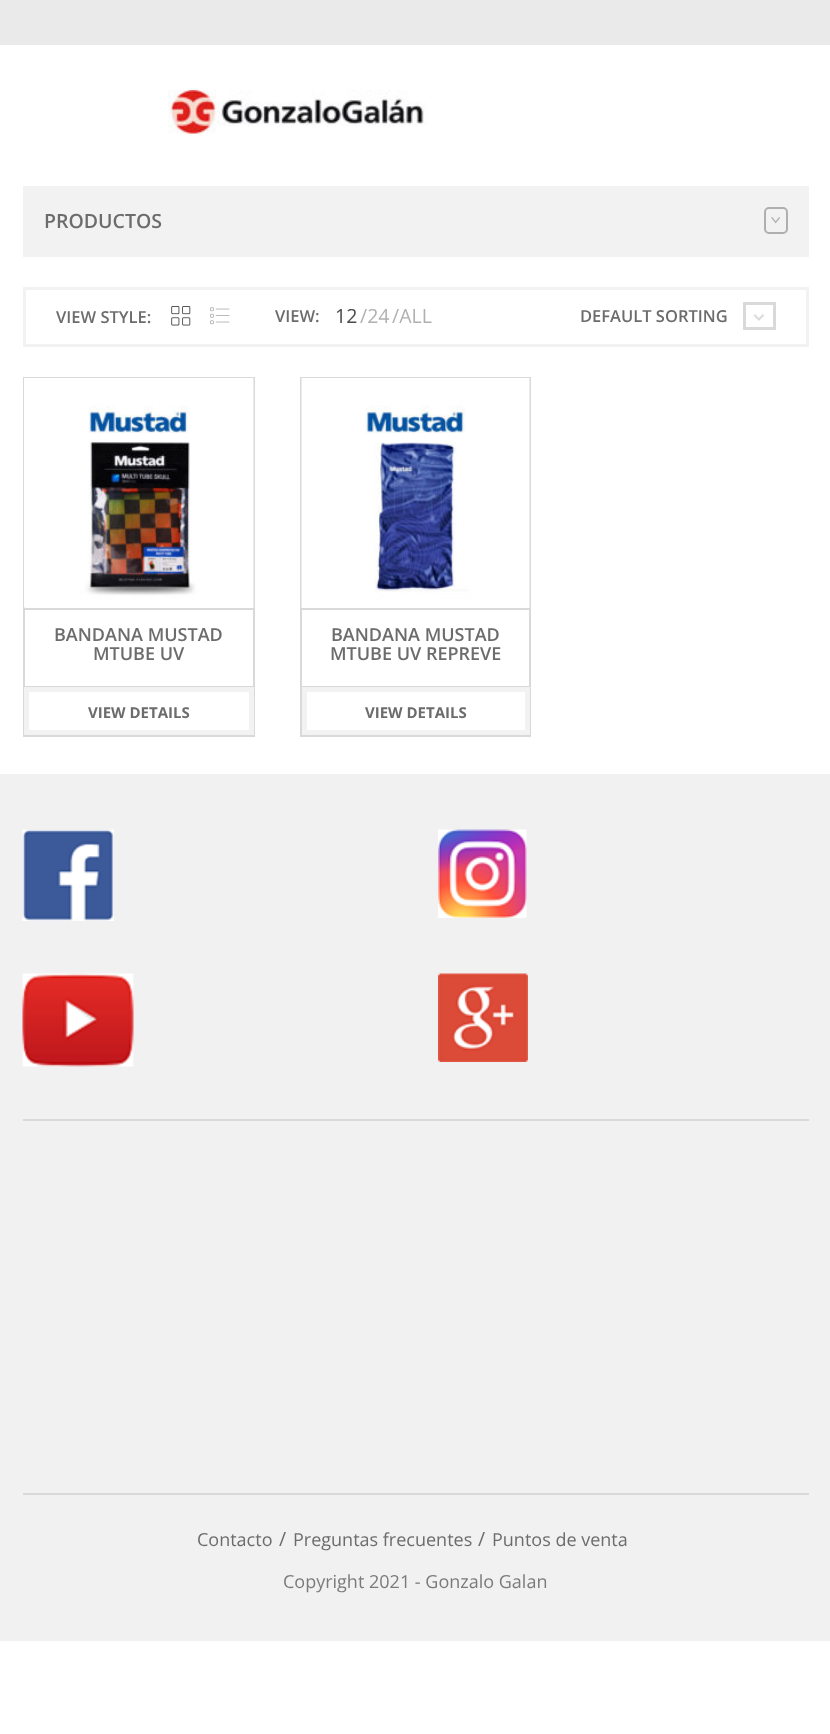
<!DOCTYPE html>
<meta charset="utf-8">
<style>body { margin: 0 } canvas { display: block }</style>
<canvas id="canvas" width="830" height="1734"></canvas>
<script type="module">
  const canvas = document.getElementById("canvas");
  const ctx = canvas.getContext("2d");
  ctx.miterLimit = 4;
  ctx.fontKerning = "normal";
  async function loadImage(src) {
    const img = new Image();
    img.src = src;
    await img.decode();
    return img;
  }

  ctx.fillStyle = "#ffffff";
  ctx.fillRect(0, 0, 830, 1734);
  ctx.fillStyle = "#eaeaea";
  ctx.fillRect(0, 0, 830, 45);
  ctx.drawImage(await loadImage("img1.png"), 168, 90, 259, 44);
  ctx.fillStyle = "#f2f2f2";
  ctx.fillRect(23, 186, 786, 71);
  ctx.font = "600 19.5px Open Sans";
  ctx.fillStyle = "#6d6c6c";
  ctx.fillText("PRODUCTOS", 44, 228);
  ctx.beginPath();
  ctx.roundRect(765, 208, 22, 25, 4);
  ctx.strokeStyle = "#b0afaf";
  ctx.lineWidth = 2;
  ctx.stroke();
  ctx.drawImage(await loadImage("img2.png"), 771, 217, 9, 7);
  ctx.strokeStyle = "#f2f2f2";
  ctx.lineWidth = 3;
  ctx.strokeRect(24.5, 288.5, 783, 57);
  ctx.font = "600 16.5px Open Sans";
  ctx.fillText("VIEW STYLE:", 56, 323);
  ctx.drawImage(await loadImage("img3.png"), 171, 306, 20, 20);
  ctx.drawImage(await loadImage("img4.png"), 210, 307, 20, 18);
  ctx.fillText("VIEW:", 275, 322);
  ctx.font = "19.5px Open Sans";
  ctx.fillStyle = "#4b4b4b";
  ctx.fillText("12", 335, 323);
  ctx.fillStyle = "#b1b1b1";
  ctx.fillText("/24", 360, 323);
  ctx.fillText("/ALL", 392, 323);
  ctx.font = "600 16.5px Open Sans";
  ctx.fillStyle = "#6d6c6c";
  ctx.fillText("DEFAULT SORTING", 580, 322);
  ctx.drawImage(await loadImage("img5.png"), 753, 313, 12, 8);
  ctx.strokeStyle = "#dbd8d8";
  ctx.strokeRect(744.5, 303.5, 30, 25);
  ctx.lineWidth = 2;
  ctx.strokeRect(24, 378, 230, 358);
  ctx.drawImage(await loadImage("img6.png"), 24, 378, 230, 230);
  ctx.fillStyle = "#dbd8d8";
  ctx.fillRect(24, 608, 230, 2);
  ctx.font = "600 18px Open Sans";
  ctx.fillStyle = "#6d6c6c";
  ctx.fillText("BANDANA MUSTAD", 54, 641);
  ctx.fillText("MTUBE UV", 93, 660);
  ctx.fillStyle = "#dbd8d8";
  ctx.fillRect(24, 686, 230, 1);
  ctx.strokeStyle = "#f2f2f2";
  ctx.lineWidth = 5;
  ctx.strokeRect(26.5, 689.5, 225, 43);
  ctx.font = "bold 15px Open Sans";
  ctx.fillStyle = "#6d6c6c";
  ctx.fillText("VIEW DETAILS", 88, 718);
  ctx.strokeStyle = "#dbd8d8";
  ctx.lineWidth = 2;
  ctx.strokeRect(301, 378, 229, 358);
  ctx.drawImage(await loadImage("img7.png"), 301, 378, 229, 230);
  ctx.fillStyle = "#dbd8d8";
  ctx.fillRect(302, 608, 228, 2);
  ctx.font = "600 18px Open Sans";
  ctx.fillStyle = "#6d6c6c";
  ctx.fillText("BANDANA MUSTAD", 331, 641);
  ctx.fillText("MTUBE UV REPREVE", 330, 660);
  ctx.fillStyle = "#dbd8d8";
  ctx.fillRect(302, 686, 228, 1);
  ctx.strokeStyle = "#f2f2f2";
  ctx.lineWidth = 5;
  ctx.strokeRect(304.5, 689.5, 223, 43);
  ctx.font = "bold 15px Open Sans";
  ctx.fillStyle = "#6d6c6c";
  ctx.fillText("VIEW DETAILS", 365, 718);
  ctx.fillStyle = "#f1f1f1";
  ctx.fillRect(0, 774, 830, 867);
  ctx.drawImage(await loadImage("img8.png"), 22, 829, 92, 92);
  ctx.drawImage(await loadImage("img9.png"), 438, 829, 89, 89);
  ctx.drawImage(await loadImage("img10.png"), 22, 973, 112, 94);
  ctx.drawImage(await loadImage("img11.png"), 438, 973, 90, 89);
  ctx.fillStyle = "#dbd8d8";
  ctx.fillRect(23, 1119, 786, 2);
  ctx.fillRect(23, 1493, 786, 2);
  ctx.font = "18px Open Sans";
  ctx.fillStyle = "#6d6c6c";
  ctx.fillText("Contacto", 197, 1546);
  ctx.font = "19.5px Open Sans";
  ctx.fillText("/", 279, 1546);
  ctx.font = "18px Open Sans";
  ctx.fillText("Preguntas frecuentes", 293, 1546);
  ctx.font = "19.5px Open Sans";
  ctx.fillText("/", 478, 1546);
  ctx.font = "18px Open Sans";
  ctx.fillText("Puntos de venta", 492, 1546);
  ctx.fillStyle = "#7b7b7b";
  ctx.fillText("Copyright 2021 - Gonzalo Galan", 283, 1588);
</script>
